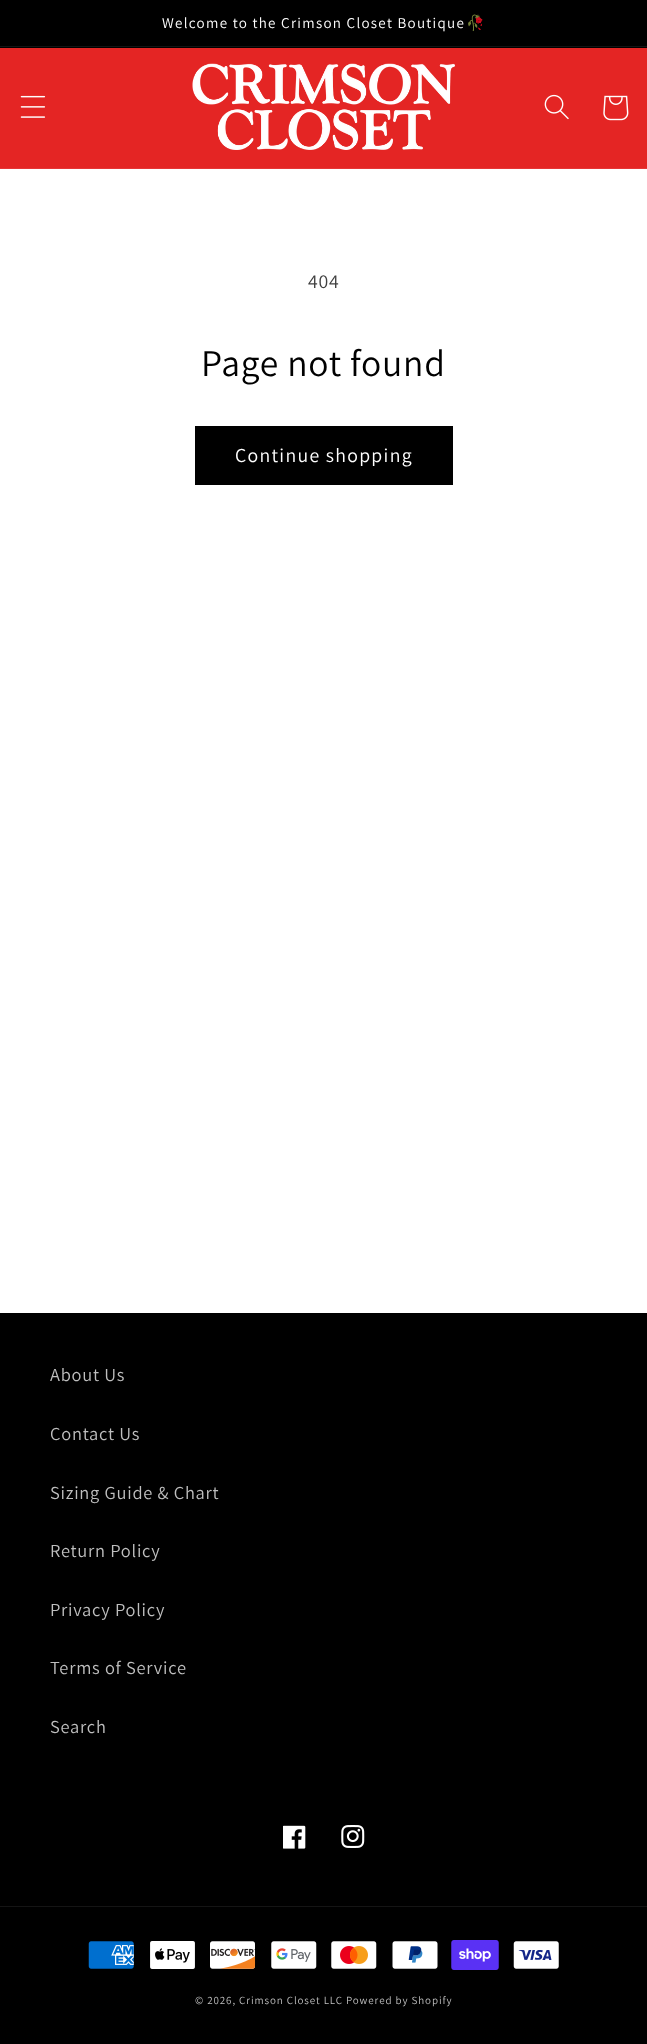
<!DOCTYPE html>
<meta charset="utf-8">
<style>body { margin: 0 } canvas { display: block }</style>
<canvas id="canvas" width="647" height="2044"></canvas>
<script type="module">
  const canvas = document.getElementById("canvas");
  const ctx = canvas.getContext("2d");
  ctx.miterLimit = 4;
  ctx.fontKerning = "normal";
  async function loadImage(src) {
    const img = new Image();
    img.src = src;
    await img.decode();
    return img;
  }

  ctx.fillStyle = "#ffffff";
  ctx.fillRect(0, 0, 647, 2044);
  ctx.fillStyle = "#000000";
  ctx.fillRect(0, 0, 647, 48);
  ctx.fillStyle = "#141414";
  ctx.fillRect(0, 46, 647, 1);
  ctx.letterSpacing = "1.3px";
  ctx.font = "15px Assistant";
  ctx.fillStyle = "#ffffff";
  ctx.fillText("Welcome to the Crimson Closet Boutique", 162, 28);
  ctx.font = "15px Noto Color Emoji";
  ctx.fillText("🥀", 466, 28);
  ctx.fillStyle = "#e42524";
  ctx.fillRect(0, 48, 647, 120);
  ctx.fillStyle = "#e63636";
  ctx.fillRect(0, 168, 647, 1);
  ctx.drawImage(await loadImage("img1.png"), 20, 95, 26, 23);
  ctx.drawImage(await loadImage("img2.png"), 192, 63, 263, 87);
  ctx.drawImage(await loadImage("img3.png"), 544, 94, 25, 26);
  ctx.drawImage(await loadImage("img4.png"), 603, 95, 26, 26);
  ctx.letterSpacing = "0.75px";
  ctx.font = "19.75px Assistant";
  ctx.fillStyle = "#404040";
  ctx.fillText("404", 308, 288);
  ctx.font = "37.5px Assistant";
  ctx.fillStyle = "#000000";
  ctx.fillText("Page not found", 201, 376);
  ctx.fillRect(195, 426, 258, 59);
  ctx.letterSpacing = "1.3px";
  ctx.font = "19.75px Assistant";
  ctx.fillStyle = "#ffffff";
  ctx.fillText("Continue shopping", 235, 462);
  ctx.fillStyle = "#000000";
  ctx.fillRect(0, 1313, 647, 731);
  ctx.letterSpacing = "0.75px";
  ctx.font = "18.4px Assistant";
  ctx.fillStyle = "#bfbfbf";
  ctx.fillText("About Us", 50, 1381);
  ctx.fillText("Contact Us", 50, 1440);
  ctx.fillText("Sizing Guide & Chart", 50, 1499);
  ctx.fillText("Return Policy", 50, 1557);
  ctx.fillText("Privacy Policy", 50, 1616);
  ctx.fillText("Terms of Service", 50, 1674);
  ctx.fillText("Search", 50, 1733);
  ctx.drawImage(await loadImage("img5.png"), 283, 1825, 23, 24);
  ctx.drawImage(await loadImage("img6.png"), 341, 1825, 24, 23);
  ctx.fillStyle = "#141414";
  ctx.fillRect(0, 1906, 647, 1);
  ctx.drawImage(await loadImage("img7.png"), 88, 1941, 46, 28);
  ctx.drawImage(await loadImage("img8.png"), 150, 1941, 45, 28);
  ctx.drawImage(await loadImage("img9.png"), 210, 1941, 46, 28);
  ctx.drawImage(await loadImage("img10.png"), 271, 1941, 46, 28);
  ctx.drawImage(await loadImage("img11.png"), 331, 1941, 46, 28);
  ctx.drawImage(await loadImage("img12.png"), 392, 1941, 46, 28);
  ctx.drawImage(await loadImage("img13.png"), 451, 1940, 48, 30);
  ctx.drawImage(await loadImage("img14.png"), 513, 1941, 46, 28);
  ctx.letterSpacing = "0.9px";
  ctx.font = "11px Assistant";
  ctx.fillStyle = "#bfbfbf";
  ctx.fillText("© 2026, Crimson Closet LLC", 195, 2004);
  ctx.fillText("Powered by Shopify", 346, 2004);
</script>
